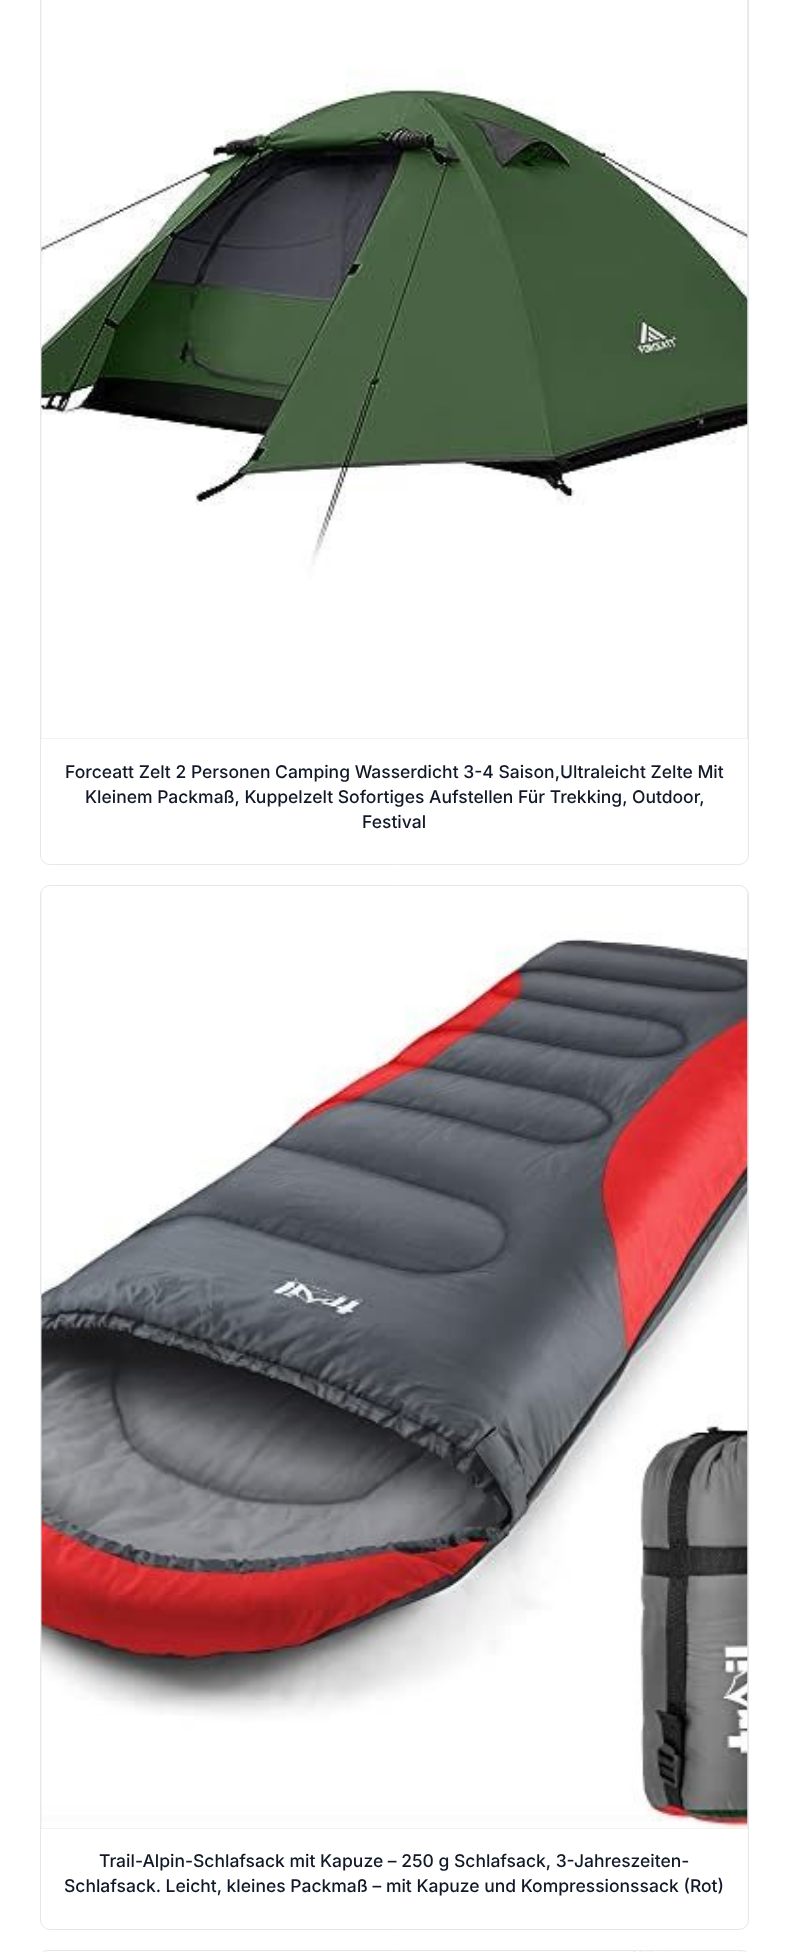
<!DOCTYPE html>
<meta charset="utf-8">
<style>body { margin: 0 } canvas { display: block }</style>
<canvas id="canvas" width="788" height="1952"></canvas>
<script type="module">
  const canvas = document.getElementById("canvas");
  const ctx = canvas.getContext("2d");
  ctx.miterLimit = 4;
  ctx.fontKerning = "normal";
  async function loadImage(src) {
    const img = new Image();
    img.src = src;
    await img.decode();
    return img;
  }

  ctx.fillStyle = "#ffffff";
  ctx.fillRect(0, 0, 788, 1952);
  ctx.beginPath();
  ctx.roundRect(40.5, -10.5, 708, 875, 9.5);
  ctx.strokeStyle = "#e5e7eb";
  ctx.stroke();
  ctx.fillStyle = "#e5e7eb";
  ctx.fillRect(41, 0, 707, 739);
  ctx.drawImage(await loadImage("img1.png"), 41, 0, 707, 739);
  ctx.font = "500 17.5px Inter";
  ctx.fillStyle = "#111827";
  ctx.fillText("Forceatt Zelt 2 Personen Camping Wasserdicht 3-4 Saison,Ultraleicht Zelte Mit", 65, 778);
  ctx.fillText("Kleinem Packmaß, Kuppelzelt Sofortiges Aufstellen Für Trekking, Outdoor,", 85, 803);
  ctx.fillText("Festival", 362, 828);
  ctx.beginPath();
  ctx.roundRect(40.5, 885.5, 708, 1044, 9.5);
  ctx.stroke();
  ctx.fillStyle = "#e5e7eb";
  ctx.beginPath();
  ctx.roundRect(41, 886, 707, 943, [9, 9, 0, 0]);
  ctx.fill();
  ctx.drawImage(await loadImage("img2.png"), 41, 886, 707, 943);
  ctx.fillStyle = "#111827";
  ctx.fillText("Trail-Alpin-Schlafsack mit Kapuze – 250 g Schlafsack, 3-Jahreszeiten-", 99, 1867);
  ctx.fillText("Schlafsack. Leicht, kleines Packmaß – mit Kapuze und Kompressionssack (Rot)", 64, 1892);
  ctx.beginPath();
  ctx.roundRect(40.5, 1950.5, 708, 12, 9.5);
  ctx.stroke();
  ctx.fillStyle = "#e5e7eb";
  ctx.beginPath();
  ctx.moveTo(50, 1951);
  ctx.lineTo(739, 1951);
  ctx.bezierCurveTo(744, 1951, 748, 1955, 748, 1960);
  ctx.lineTo(748, 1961);
  ctx.lineTo(41, 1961);
  ctx.lineTo(41, 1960);
  ctx.bezierCurveTo(41, 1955, 45, 1951, 50, 1951);
  ctx.closePath();
  ctx.fill();
  ctx.drawImage(await loadImage("img3.png"), 47, 1951, 695, 1);
</script>
